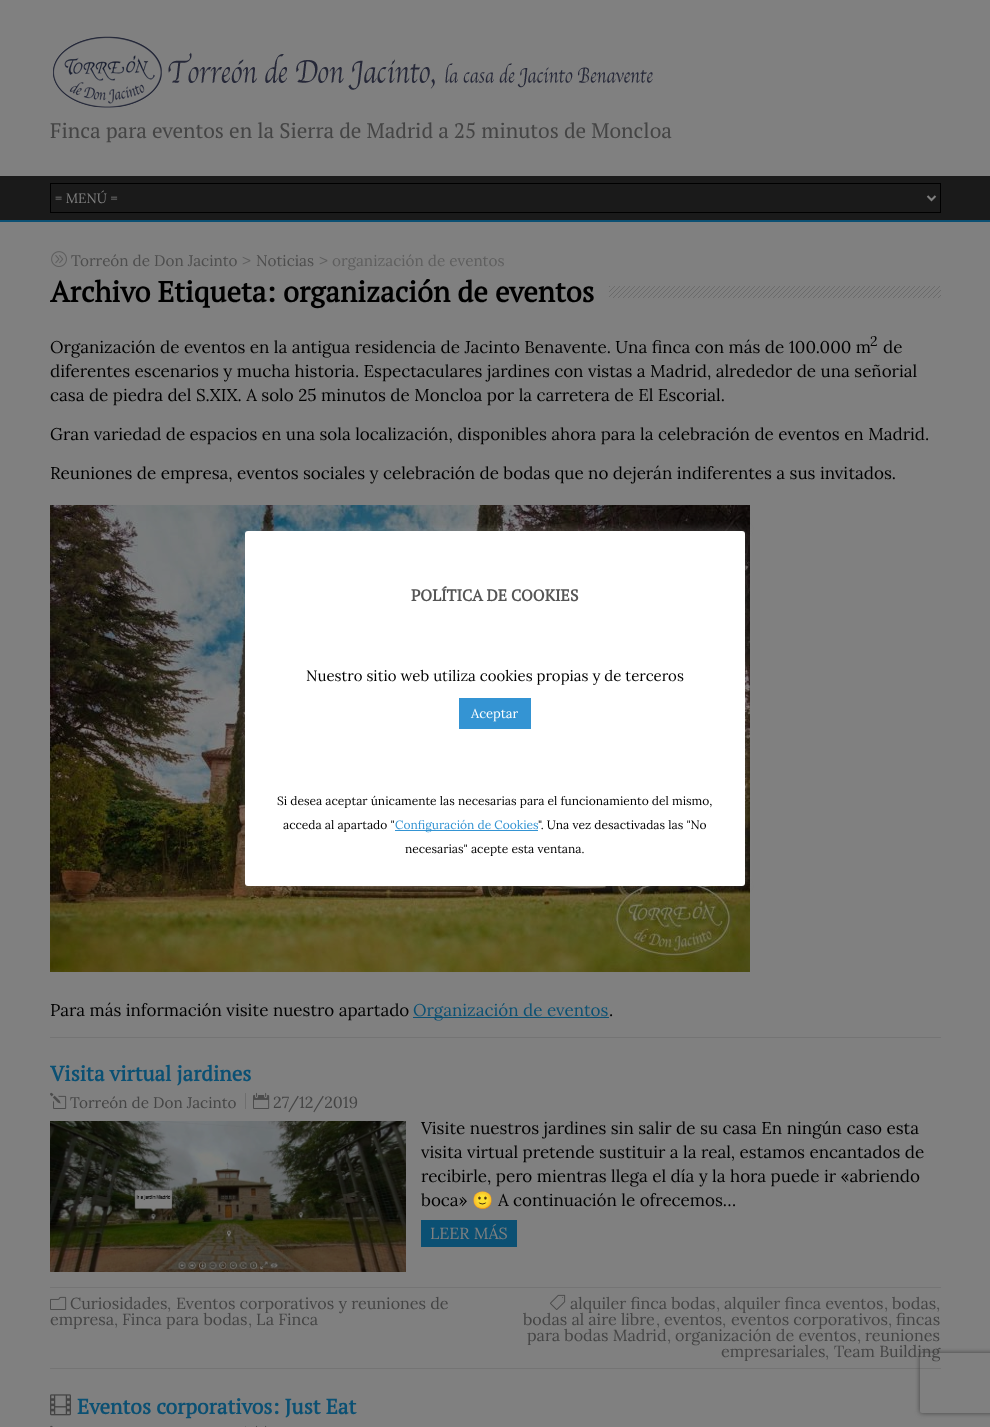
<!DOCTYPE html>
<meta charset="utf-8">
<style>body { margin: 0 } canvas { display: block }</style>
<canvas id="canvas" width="990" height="1427"></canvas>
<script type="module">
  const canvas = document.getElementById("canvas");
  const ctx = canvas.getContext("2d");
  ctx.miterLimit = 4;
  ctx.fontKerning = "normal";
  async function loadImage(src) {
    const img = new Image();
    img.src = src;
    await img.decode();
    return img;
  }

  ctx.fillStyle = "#808080";
  ctx.fillRect(0, 0, 990, 1427);
  ctx.drawImage(await loadImage("img1.png"), 53, 36, 600, 72);
  ctx.font = "21px PT Serif";
  ctx.fillStyle = "#444444";
  ctx.fillText("Finca para eventos en la Sierra de Madrid a 25 minutos de Moncloa", 50, 138);
  ctx.fillStyle = "#1a1a1a";
  ctx.fillRect(0, 176, 990, 44);
  ctx.fillStyle = "#0b5073";
  ctx.fillRect(0, 220, 990, 2);
  ctx.strokeStyle = "#000000";
  ctx.strokeRect(50.5, 183.5, 890, 29);
  ctx.beginPath();
  ctx.moveTo(927.5, 196);
  ctx.lineTo(931.5, 200);
  ctx.lineTo(935.5, 196);
  ctx.strokeStyle = "#808080";
  ctx.lineWidth = 2;
  ctx.stroke();
  ctx.font = "13.5px Lora";
  ctx.fillStyle = "#808080";
  ctx.fillText("= MENÚ =", 55, 203);
  ctx.drawImage(await loadImage("img2.png"), 51, 251, 16, 16);
  ctx.font = "15.3px Lora";
  ctx.fillStyle = "#4d4d4d";
  ctx.fillText("Torreón de Don Jacinto", 71, 266);
  ctx.font = "17px Lora";
  ctx.fillStyle = "#5e5e5e";
  ctx.fillText(">", 242, 266);
  ctx.font = "15.3px Lora";
  ctx.fillStyle = "#4d4d4d";
  ctx.fillText("Noticias", 256, 266);
  ctx.font = "17px Lora";
  ctx.fillStyle = "#5e5e5e";
  ctx.fillText(">", 319, 266);
  ctx.font = "15.3px Lora";
  ctx.fillText("organización de eventos", 332, 266);
  ctx.drawImage(await loadImage("img3.png"), 609, 286, 332, 12);
  ctx.font = "bold 29px PT Serif";
  ctx.fillStyle = "#000000";
  ctx.fillText("Archivo Etiqueta: organización de eventos", 50, 302);
  ctx.fillStyle = "#747474";
  ctx.fillRect(50, 1037, 891, 1);
  ctx.font = "17px Lora";
  ctx.fillStyle = "#000000";
  ctx.fillText("Organización de eventos en la antigua residencia de Jacinto Benavente. Una finca con más de 100.000 m", 50, 353);
  ctx.font = "14px Lora";
  ctx.fillText("2", 870, 346);
  ctx.font = "17px Lora";
  ctx.fillText("de", 883, 353);
  ctx.fillText("diferentes escenarios y mucha historia. Espectaculares jardines con vistas a Madrid, alrededor de una señorial", 50, 377);
  ctx.fillText("casa de piedra del S.XIX. A solo 25 minutos de Moncloa por la carretera de El Escorial.", 50, 401);
  ctx.fillText("Gran variedad de espacios en una sola localización, disponibles ahora para la celebración de eventos en Madrid.", 50, 440);
  ctx.fillText("Reuniones de empresa, eventos sociales y celebración de bodas que no dejerán indiferentes a sus invitados.", 50, 479);
  ctx.drawImage(await loadImage("img4.png"), 50, 505, 700, 467);
  ctx.fillText("Para más información visite nuestro apartado", 50, 1016);
  ctx.fillStyle = "#0b5073";
  ctx.fillRect(413, 1017, 196, 1);
  ctx.fillText("Organización de eventos", 413, 1016);
  ctx.fillStyle = "#000000";
  ctx.fillText(".", 609, 1016);
  ctx.fillStyle = "#747474";
  ctx.fillRect(50, 1368, 891, 1);
  ctx.font = "bold 21px PT Serif";
  ctx.fillStyle = "#0b5073";
  ctx.fillText("Visita virtual jardines", 50, 1081);
  ctx.drawImage(await loadImage("img5.png"), 50, 1092, 17, 17);
  ctx.font = "15.3px Lora";
  ctx.fillStyle = "#444444";
  ctx.fillText("Torreón de Don Jacinto", 70, 1108);
  ctx.drawImage(await loadImage("img6.png"), 253, 1092, 17, 17);
  ctx.font = "16.1px Lora";
  ctx.fillText("27/12/2019", 273, 1108);
  ctx.fillStyle = "#6e6e6e";
  ctx.fillRect(245, 1093, 1, 16);
  ctx.drawImage(await loadImage("img7.png"), 50, 1121, 356, 151);
  ctx.font = "17px Lora";
  ctx.fillStyle = "#000000";
  ctx.fillText("Visite nuestros jardines sin salir de su casa En ningún caso esta", 421, 1134);
  ctx.fillText("visita virtual pretende sustituir a la real, estamos encantados de", 421, 1158);
  ctx.fillText("recibirle, pero mientras llega el día y la hora puede ir «abriendo", 421, 1182);
  ctx.fillText("boca»", 421, 1206);
  ctx.font = "17px Noto Color Emoji";
  ctx.fillText("🙂", 472, 1206);
  ctx.font = "17px Lora";
  ctx.fillText("A continuación le ofrecemos…", 498, 1206);
  ctx.fillStyle = "#0b5073";
  ctx.fillRect(421, 1220, 96, 27);
  ctx.font = "16.1px Lora";
  ctx.fillStyle = "#808080";
  ctx.fillText("LEER MÁS", 430, 1239);
  ctx.fillStyle = "#747474";
  ctx.fillRect(50, 1287, 891, 1);
  ctx.drawImage(await loadImage("img8.png"), 50, 1296, 17, 14);
  ctx.fillStyle = "#444444";
  ctx.fillText("Curiosidades", 70, 1309);
  ctx.fillStyle = "#4d4d4d";
  ctx.fillText(",", 167, 1309);
  ctx.fillStyle = "#444444";
  ctx.fillText("Eventos corporativos y reuniones de", 176, 1309);
  ctx.fillText("empresa", 50, 1325);
  ctx.fillStyle = "#4d4d4d";
  ctx.fillText(",", 114, 1325);
  ctx.fillStyle = "#444444";
  ctx.fillText("Finca para bodas", 122, 1325);
  ctx.fillStyle = "#4d4d4d";
  ctx.fillText(",", 248, 1325);
  ctx.fillStyle = "#444444";
  ctx.fillText("La Finca", 256, 1325);
  ctx.drawImage(await loadImage("img9.png"), 550, 1294, 16, 16);
  ctx.fillText("alquiler finca bodas", 570, 1309);
  ctx.fillStyle = "#4d4d4d";
  ctx.fillText(",", 716, 1309);
  ctx.fillStyle = "#444444";
  ctx.fillText("alquiler finca eventos", 724, 1309);
  ctx.fillStyle = "#4d4d4d";
  ctx.fillText(",", 884, 1309);
  ctx.fillStyle = "#444444";
  ctx.fillText("bodas", 892, 1309);
  ctx.fillStyle = "#4d4d4d";
  ctx.fillText(",", 936, 1309);
  ctx.fillStyle = "#444444";
  ctx.fillText("bodas al aire libre", 523, 1325);
  ctx.fillStyle = "#4d4d4d";
  ctx.fillText(",", 656, 1325);
  ctx.fillStyle = "#444444";
  ctx.fillText("eventos", 664, 1325);
  ctx.fillStyle = "#4d4d4d";
  ctx.fillText(",", 722, 1325);
  ctx.fillStyle = "#444444";
  ctx.fillText("eventos corporativos", 731, 1325);
  ctx.fillStyle = "#4d4d4d";
  ctx.fillText(",", 888, 1325);
  ctx.fillStyle = "#444444";
  ctx.fillText("fincas", 896, 1325);
  ctx.fillText("para bodas Madrid", 527, 1341);
  ctx.fillStyle = "#4d4d4d";
  ctx.fillText(",", 667, 1341);
  ctx.fillStyle = "#444444";
  ctx.fillText("organización de eventos", 675, 1341);
  ctx.fillStyle = "#4d4d4d";
  ctx.fillText(",", 857, 1341);
  ctx.fillStyle = "#444444";
  ctx.fillText("reuniones", 865, 1341);
  ctx.fillText("empresariales", 721, 1357);
  ctx.fillStyle = "#4d4d4d";
  ctx.fillText(",", 825, 1357);
  ctx.fillStyle = "#444444";
  ctx.fillText("Team Building", 834, 1357);
  ctx.drawImage(await loadImage("img10.png"), 50, 1394, 21, 22);
  ctx.font = "bold 21px PT Serif";
  ctx.fillStyle = "#0b5073";
  ctx.fillText("Eventos corporativos: Just Eat", 77, 1414);
  ctx.drawImage(await loadImage("img11.png"), 50, 1425, 3, 2);
  ctx.fillStyle = "#6e6e6e";
  ctx.fillRect(245, 1426, 1, 1);
  ctx.drawImage(await loadImage("img12.png"), 256, 1425, 11, 2);
  ctx.fillStyle = "rgba(172, 171, 171, 0.3)";
  ctx.filter = "blur(5px)";
  ctx.beginPath();
  ctx.roundRect(245, 530, 500, 355, 3);
  ctx.fill();
  ctx.filter = "none";
  ctx.fillStyle = "#ffffff";
  ctx.beginPath();
  ctx.roundRect(245, 531, 500, 355, 3);
  ctx.fill();
  ctx.font = "bold 16px PT Serif";
  ctx.fillStyle = "#555555";
  ctx.fillText("POLÍTICA DE COOKIES", 411, 601);
  ctx.font = "15px Lora";
  ctx.fillStyle = "#000000";
  ctx.fillText("Nuestro sitio web utiliza cookies propias y de terceros", 306, 681);
  ctx.fillStyle = "#3494d3";
  ctx.fillRect(459, 698, 72, 31);
  ctx.font = "13px Lora";
  ctx.fillStyle = "#ffffff";
  ctx.fillText("Aceptar", 471, 718);
  ctx.font = "12px Lora";
  ctx.fillStyle = "#000000";
  ctx.fillText("Si desea aceptar únicamente las necesarias para el funcionamiento del mismo,", 277, 805);
  ctx.fillText("acceda al apartado \"", 283, 829);
  ctx.fillStyle = "#3494d3";
  ctx.fillRect(395, 830, 143, 1);
  ctx.fillText("Configuración de Cookies", 395, 829);
  ctx.fillStyle = "#000000";
  ctx.fillText("\". Una vez desactivadas las \"No", 538, 829);
  ctx.fillText("necesarias\" acepte esta ventana.", 405, 853);
  ctx.save();
  ctx.beginPath();
  ctx.moveTo(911, 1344);
  ctx.lineTo(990, 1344);
  ctx.lineTo(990, 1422);
  ctx.lineTo(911, 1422);
  ctx.closePath();
  ctx.moveTo(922, 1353);
  ctx.lineTo(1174, 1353);
  ctx.bezierCurveTo(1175, 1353, 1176, 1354, 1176, 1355);
  ctx.lineTo(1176, 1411);
  ctx.bezierCurveTo(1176, 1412, 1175, 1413, 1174, 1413);
  ctx.lineTo(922, 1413);
  ctx.bezierCurveTo(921, 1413, 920, 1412, 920, 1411);
  ctx.lineTo(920, 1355);
  ctx.bezierCurveTo(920, 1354, 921, 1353, 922, 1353);
  ctx.closePath();
  ctx.clip("evenodd");
  ctx.fillStyle = "#404040";
  ctx.filter = "blur(2.5px)";
  ctx.beginPath();
  ctx.roundRect(920, 1353, 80, 60, 2);
  ctx.fill();
  ctx.filter = "none";
  ctx.restore();
</script>
